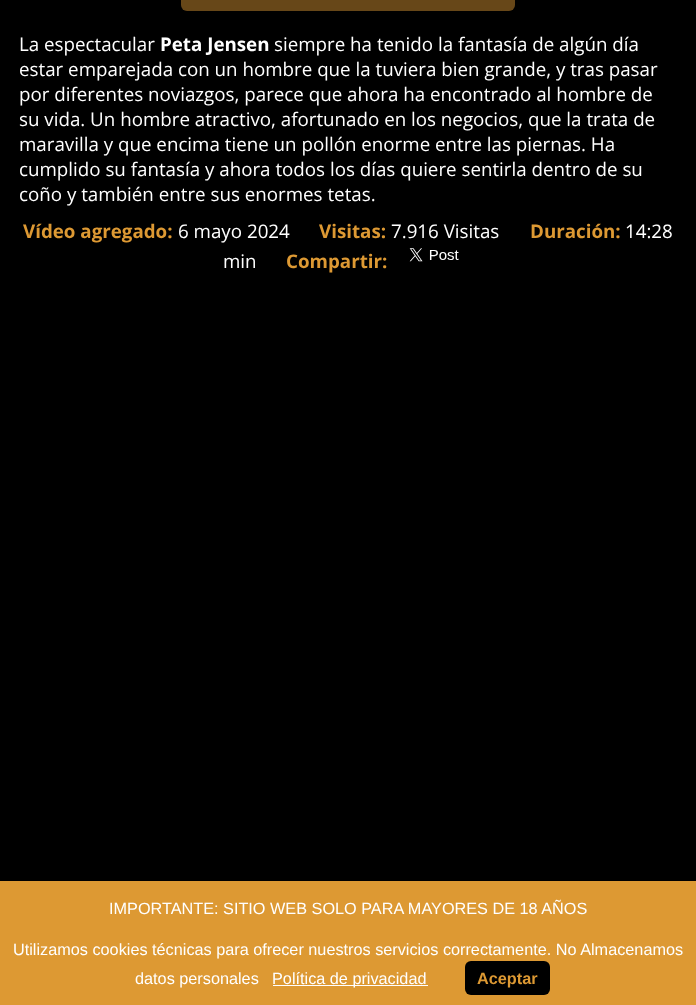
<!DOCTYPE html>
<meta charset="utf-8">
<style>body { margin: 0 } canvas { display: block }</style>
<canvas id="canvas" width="696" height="1005"></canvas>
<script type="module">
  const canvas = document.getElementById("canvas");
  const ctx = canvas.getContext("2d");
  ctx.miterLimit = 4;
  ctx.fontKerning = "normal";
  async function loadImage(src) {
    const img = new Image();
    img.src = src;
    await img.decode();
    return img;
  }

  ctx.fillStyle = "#000000";
  ctx.fillRect(0, 0, 696, 1005);
  ctx.fillStyle = "#674718";
  ctx.beginPath();
  ctx.roundRect(181, -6, 334, 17, 6);
  ctx.fill();
  ctx.font = "18.75px Open Sans";
  ctx.fillStyle = "#ffffff";
  ctx.fillText("La espectacular", 19, 51);
  ctx.font = "bold 18.75px Open Sans";
  ctx.fillText("Peta Jensen", 160, 51);
  ctx.font = "18.75px Open Sans";
  ctx.fillText("siempre ha tenido la fantasía de algún día", 274, 51);
  ctx.fillText("estar emparejada con un hombre que la tuviera bien grande, y tras pasar", 19, 76);
  ctx.fillText("por diferentes noviazgos, parece que ahora ha encontrado al hombre de", 19, 101);
  ctx.fillText("su vida. Un hombre atractivo, afortunado en los negocios, que la trata de", 19, 126);
  ctx.fillText("maravilla y que encima tiene un pollón enorme entre las piernas. Ha", 19, 151);
  ctx.fillText("cumplido su fantasía y ahora todos los días quiere sentirla dentro de su", 19, 176);
  ctx.fillText("coño y también entre sus enormes tetas.", 19, 201);
  ctx.font = "bold 18.75px Open Sans";
  ctx.fillStyle = "#dd9933";
  ctx.fillText("Vídeo agregado:", 23, 238);
  ctx.font = "18.75px Open Sans";
  ctx.fillStyle = "#ffffff";
  ctx.fillText("6 mayo 2024", 178, 238);
  ctx.font = "bold 18.75px Open Sans";
  ctx.fillStyle = "#dd9933";
  ctx.fillText("Visitas:", 319, 238);
  ctx.font = "18.75px Open Sans";
  ctx.fillStyle = "#ffffff";
  ctx.fillText("7.916 Visitas", 391, 238);
  ctx.font = "bold 18.75px Open Sans";
  ctx.fillStyle = "#dd9933";
  ctx.fillText("Duración:", 530, 238);
  ctx.font = "18.75px Open Sans";
  ctx.fillStyle = "#ffffff";
  ctx.fillText("14:28", 625, 238);
  ctx.fillText("min", 223, 268);
  ctx.font = "bold 18.75px Open Sans";
  ctx.fillStyle = "#dd9933";
  ctx.fillText("Compartir:", 286, 268);
  ctx.drawImage(await loadImage("img1.png"), 409, 248, 50, 14);
  ctx.fillRect(0, 881, 696, 124);
  ctx.font = "16.25px Liberation Sans";
  ctx.fillStyle = "#ffffff";
  ctx.fillText("IMPORTANTE: SITIO WEB SOLO PARA MAYORES DE 18 AÑOS", 109, 914);
  ctx.fillText("Utilizamos cookies técnicas para ofrecer nuestros servicios correctamente. No Almacenamos", 13, 955);
  ctx.fillText("datos personales", 135, 984);
  ctx.fillRect(273, 985, 155, 1);
  ctx.fillText("Política de privacidad", 272, 984);
  ctx.fillStyle = "#000000";
  ctx.beginPath();
  ctx.roundRect(465, 961, 85, 34, 6);
  ctx.fill();
  ctx.font = "bold 16.25px Liberation Sans";
  ctx.fillStyle = "#dd9933";
  ctx.fillText("Aceptar", 477, 984);
</script>
